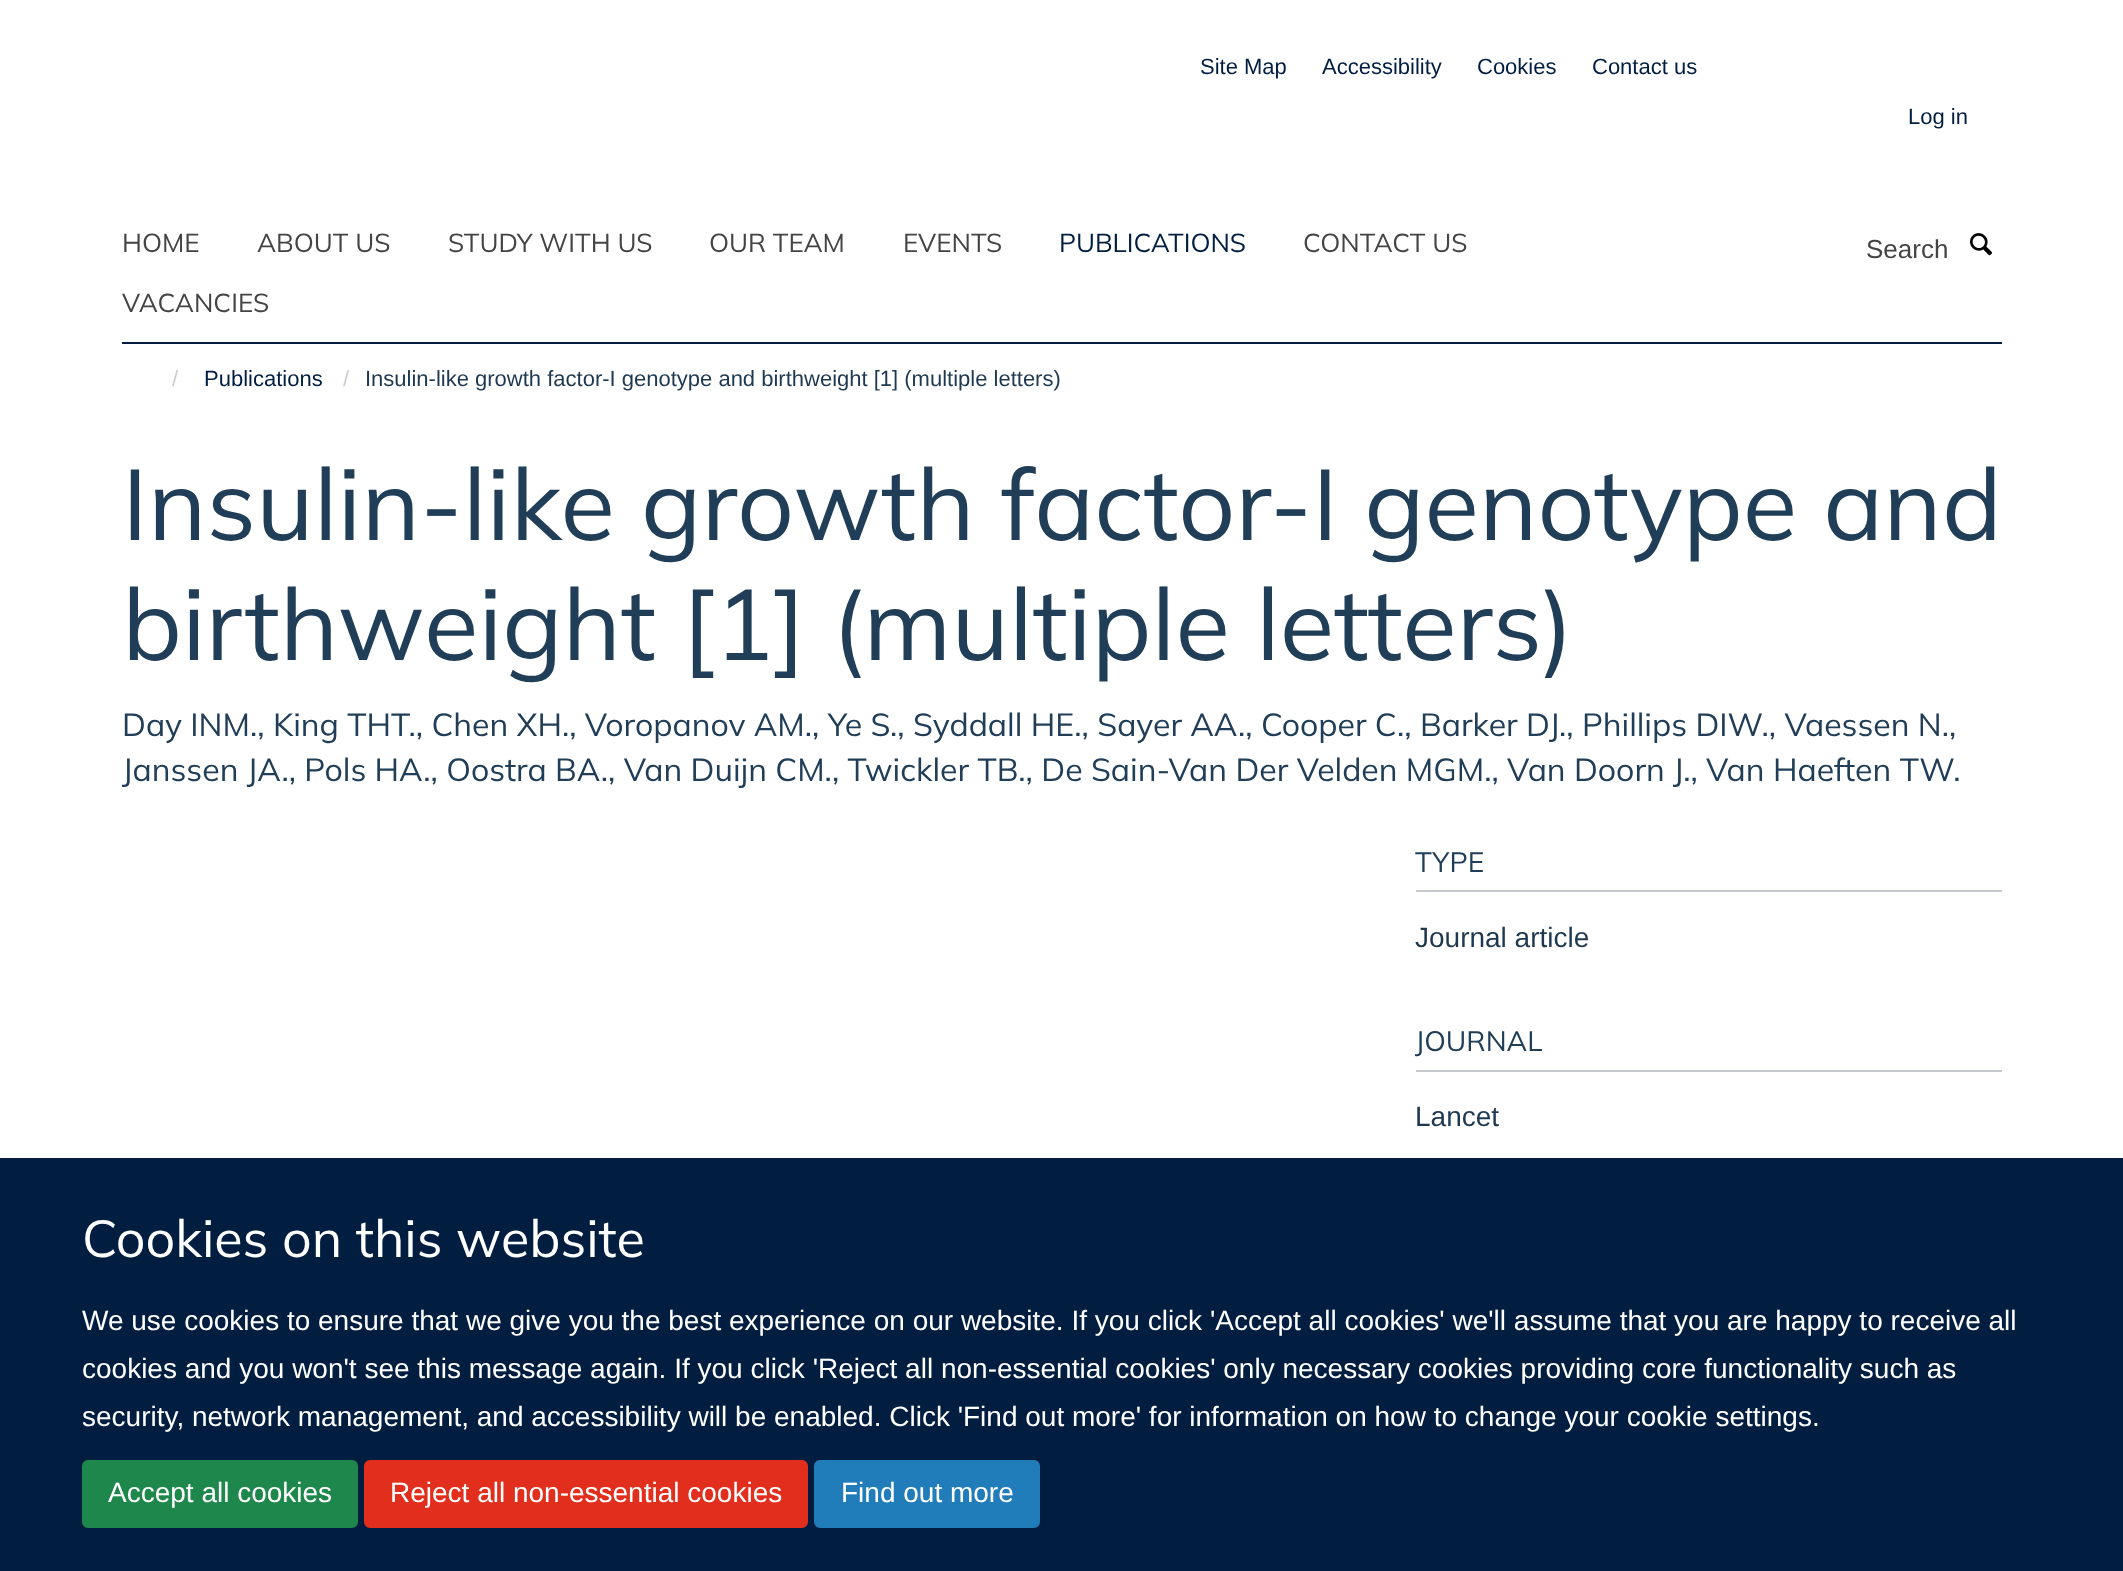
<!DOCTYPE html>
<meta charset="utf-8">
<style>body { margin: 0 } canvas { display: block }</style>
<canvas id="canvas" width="2123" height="1571"></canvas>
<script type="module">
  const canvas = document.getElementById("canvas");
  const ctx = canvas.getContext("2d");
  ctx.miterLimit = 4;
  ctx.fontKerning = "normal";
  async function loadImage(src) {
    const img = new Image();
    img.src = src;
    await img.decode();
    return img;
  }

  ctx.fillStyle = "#ffffff";
  ctx.fillRect(0, 0, 2123, 1571);
  ctx.font = "22px Liberation Sans";
  ctx.fillStyle = "#011e41";
  ctx.fillText("Site Map", 1200, 74);
  ctx.fillText("Accessibility", 1322, 74);
  ctx.fillText("Cookies", 1477, 74);
  ctx.fillText("Contact us", 1592, 74);
  ctx.fillText("Log in", 1908, 124);
  ctx.fillRect(122, 342, 1880, 2);
  ctx.font = "26px Mulish";
  ctx.fillStyle = "#444444";
  ctx.fillText("HOME", 122, 252);
  ctx.fillText("ABOUT US", 257, 252);
  ctx.fillText("STUDY WITH US", 448, 252);
  ctx.fillText("OUR TEAM", 709, 252);
  ctx.fillText("EVENTS", 903, 252);
  ctx.fillStyle = "#011e41";
  ctx.fillText("PUBLICATIONS", 1059, 252);
  ctx.fillStyle = "#444444";
  ctx.fillText("CONTACT US", 1303, 252);
  ctx.fillText("VACANCIES", 122, 312);
  ctx.font = "26px Liberation Sans";
  ctx.fillText("Search", 1866, 258);
  ctx.drawImage(await loadImage("img1.png"), 1970, 233, 23, 23);
  ctx.font = "22px Liberation Sans";
  ctx.fillStyle = "#cccccc";
  ctx.fillText("/", 172, 386);
  ctx.fillStyle = "#011e41";
  ctx.fillText("Publications", 204, 386);
  ctx.fillStyle = "#cccccc";
  ctx.fillText("/", 343, 386);
  ctx.fillStyle = "#1d3850";
  ctx.fillText("Insulin-like growth factor-I genotype and birthweight [1] (multiple letters)", 365, 386);
  ctx.font = "100px Mulish";
  ctx.fillStyle = "#203e58";
  ctx.fillText("Insulin-like growth factor-I genotype and", 122, 540);
  ctx.fillText("birthweight [1] (multiple letters)", 122, 660);
  ctx.font = "32px Mulish";
  ctx.fillText("Day INM., King THT., Chen XH., Voropanov AM., Ye S., Syddall HE., Sayer AA., Cooper C., Barker DJ., Phillips DIW., Vaessen N.,", 122, 736);
  ctx.fillText("Janssen JA., Pols HA., Oostra BA., Van Duijn CM., Twickler TB., De Sain-Van Der Velden MGM., Van Doorn J., Van Haeften TW.", 122, 781);
  ctx.fillStyle = "#c6cacf";
  ctx.fillRect(1416, 890, 586, 2);
  ctx.font = "28px Mulish";
  ctx.fillStyle = "#203e58";
  ctx.fillText("TYPE", 1415, 872);
  ctx.font = "28px Liberation Sans";
  ctx.fillStyle = "#1d3850";
  ctx.fillText("Journal article", 1415, 947);
  ctx.fillStyle = "#c6cacf";
  ctx.fillRect(1416, 1070, 586, 2);
  ctx.font = "28px Mulish";
  ctx.fillStyle = "#203e58";
  ctx.fillText("JOURNAL", 1415, 1051);
  ctx.font = "28px Liberation Sans";
  ctx.fillStyle = "#1d3850";
  ctx.fillText("Lancet", 1415, 1126);
  ctx.fillStyle = "#011e41";
  ctx.fillRect(0, 1158, 2123, 413);
  ctx.font = "52px Mulish";
  ctx.fillStyle = "#ffffff";
  ctx.fillText("Cookies on this website", 82, 1257);
  ctx.font = "28px Liberation Sans";
  ctx.fillText("We use cookies to ensure that we give you the best experience on our website. If you click 'Accept all cookies' we'll assume that you are happy to receive all", 82, 1330);
  ctx.fillText("cookies and you won't see this message again. If you click 'Reject all non-essential cookies' only necessary cookies providing core functionality such as", 82, 1378);
  ctx.fillText("security, network management, and accessibility will be enabled. Click 'Find out more' for information on how to change your cookie settings.", 82, 1426);
  ctx.fillStyle = "#1e874b";
  ctx.beginPath();
  ctx.roundRect(83, 1461, 274, 66, 5);
  ctx.fill();
  ctx.strokeStyle = "#1e874b";
  ctx.lineWidth = 2;
  ctx.stroke();
  ctx.fillStyle = "#ffffff";
  ctx.fillText("Accept all cookies", 108, 1502);
  ctx.fillStyle = "#e22e1c";
  ctx.beginPath();
  ctx.roundRect(365, 1461, 442, 66, 5);
  ctx.fill();
  ctx.strokeStyle = "#e22e1c";
  ctx.stroke();
  ctx.fillStyle = "#ffffff";
  ctx.fillText("Reject all non-essential cookies", 390, 1502);
  ctx.fillStyle = "#217cba";
  ctx.beginPath();
  ctx.roundRect(815, 1461, 224, 66, 5);
  ctx.fill();
  ctx.strokeStyle = "#217cba";
  ctx.stroke();
  ctx.fillStyle = "#ffffff";
  ctx.fillText("Find out more", 841, 1502);
</script>
